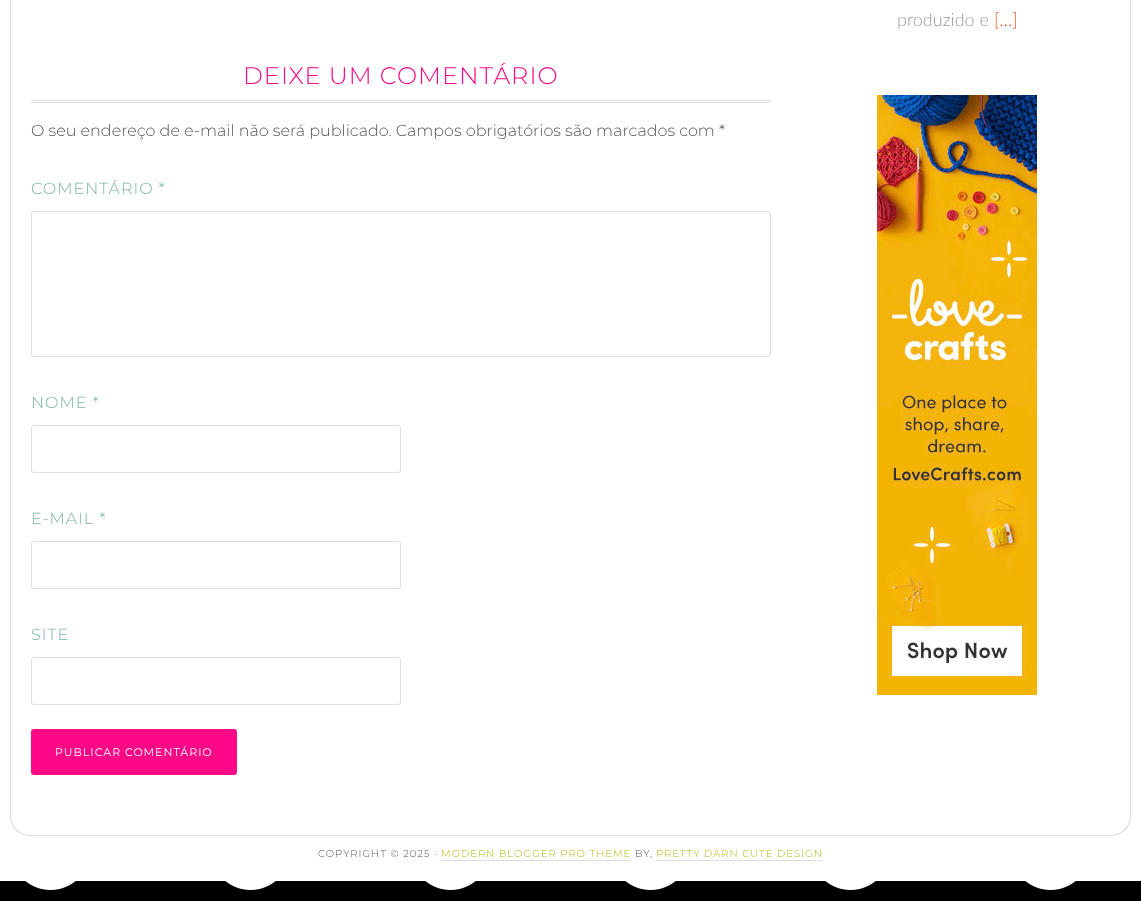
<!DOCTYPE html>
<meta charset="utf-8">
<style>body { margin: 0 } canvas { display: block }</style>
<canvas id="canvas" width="1141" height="901"></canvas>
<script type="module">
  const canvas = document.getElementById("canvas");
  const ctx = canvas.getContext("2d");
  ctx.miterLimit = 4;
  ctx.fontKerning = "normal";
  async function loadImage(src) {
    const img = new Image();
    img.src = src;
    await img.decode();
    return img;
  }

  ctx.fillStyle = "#ffffff";
  ctx.fillRect(0, 0, 1141, 901);
  ctx.drawImage(await loadImage("img1.png"), 0, 881, 1141, 20);
  ctx.fillStyle = "#dddddd";
  ctx.beginPath();
  ctx.moveTo(10, -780);
  ctx.lineTo(1131, -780);
  ctx.lineTo(1131, 816);
  ctx.bezierCurveTo(1131, 827, 1122, 836, 1111, 836);
  ctx.lineTo(30, 836);
  ctx.bezierCurveTo(19, 836, 10, 827, 10, 816);
  ctx.closePath();
  ctx.moveTo(11, -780);
  ctx.lineTo(1130, -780);
  ctx.lineTo(1130, 816);
  ctx.bezierCurveTo(1130, 826, 1121, 835, 1111, 835);
  ctx.lineTo(30, 835);
  ctx.bezierCurveTo(20, 835, 11, 826, 11, 816);
  ctx.closePath();
  ctx.fill("evenodd");
  ctx.font = "300 18px Lato";
  ctx.fillStyle = "#999999";
  ctx.fillText("produzido e", 897, 26);
  ctx.fillStyle = "#f15123";
  ctx.fillText("[…]", 994, 26);
  ctx.drawImage(await loadImage("img2.png"), 877, 95, 160, 600);
  ctx.fillStyle = "#dddddd";
  ctx.fillRect(31, 100, 740, 1);
  ctx.fillRect(31, 102, 740, 1);
  ctx.letterSpacing = "1px";
  ctx.font = "300 24px Montserrat";
  ctx.fillStyle = "#fd0886";
  ctx.fillText("DEIXE UM COMENTÁRIO", 243, 84);
  ctx.letterSpacing = "0px";
  ctx.font = "300 16px Montserrat";
  ctx.fillStyle = "#545454";
  ctx.fillText("O seu endereço de e-mail não será publicado. Campos obrigatórios são marcados com *", 31, 136);
  ctx.letterSpacing = "1px";
  ctx.fillStyle = "#7cb5a1";
  ctx.fillText("COMENTÁRIO *", 31, 194);
  ctx.beginPath();
  ctx.roundRect(31.5, 211.5, 739, 145, 2.5);
  ctx.strokeStyle = "#dddddd";
  ctx.stroke();
  ctx.fillText("NOME *", 31, 408);
  ctx.beginPath();
  ctx.roundRect(31.5, 425.5, 369, 47, 2.5);
  ctx.stroke();
  ctx.fillText("E-MAIL *", 31, 524);
  ctx.beginPath();
  ctx.roundRect(31.5, 541.5, 369, 47, 2.5);
  ctx.stroke();
  ctx.fillText("SITE", 31, 640);
  ctx.beginPath();
  ctx.roundRect(31.5, 657.5, 369, 47, 2.5);
  ctx.stroke();
  ctx.fillStyle = "#fd0886";
  ctx.beginPath();
  ctx.roundRect(31, 729, 206, 46, 3);
  ctx.fill();
  ctx.font = "11px Montserrat";
  ctx.fillStyle = "#ffffff";
  ctx.fillText("PUBLICAR COMENTÁRIO", 55, 756);
  ctx.font = "300 10px Montserrat";
  ctx.fillStyle = "#545454";
  ctx.fillText("COPYRIGHT © 2025 ·", 318, 857);
  ctx.fillStyle = "#a9bb13";
  ctx.fillText("MODERN BLOGGER PRO THEME", 441, 857);
  ctx.fillStyle = "#dddddd";
  ctx.fillRect(441, 860, 190, 1);
  ctx.fillStyle = "#545454";
  ctx.fillText("BY,", 635, 857);
  ctx.fillStyle = "#a9bb13";
  ctx.fillText("PRETTY DARN CUTE DESIGN", 656, 857);
  ctx.fillStyle = "#dddddd";
  ctx.fillRect(656, 860, 167, 1);
</script>
